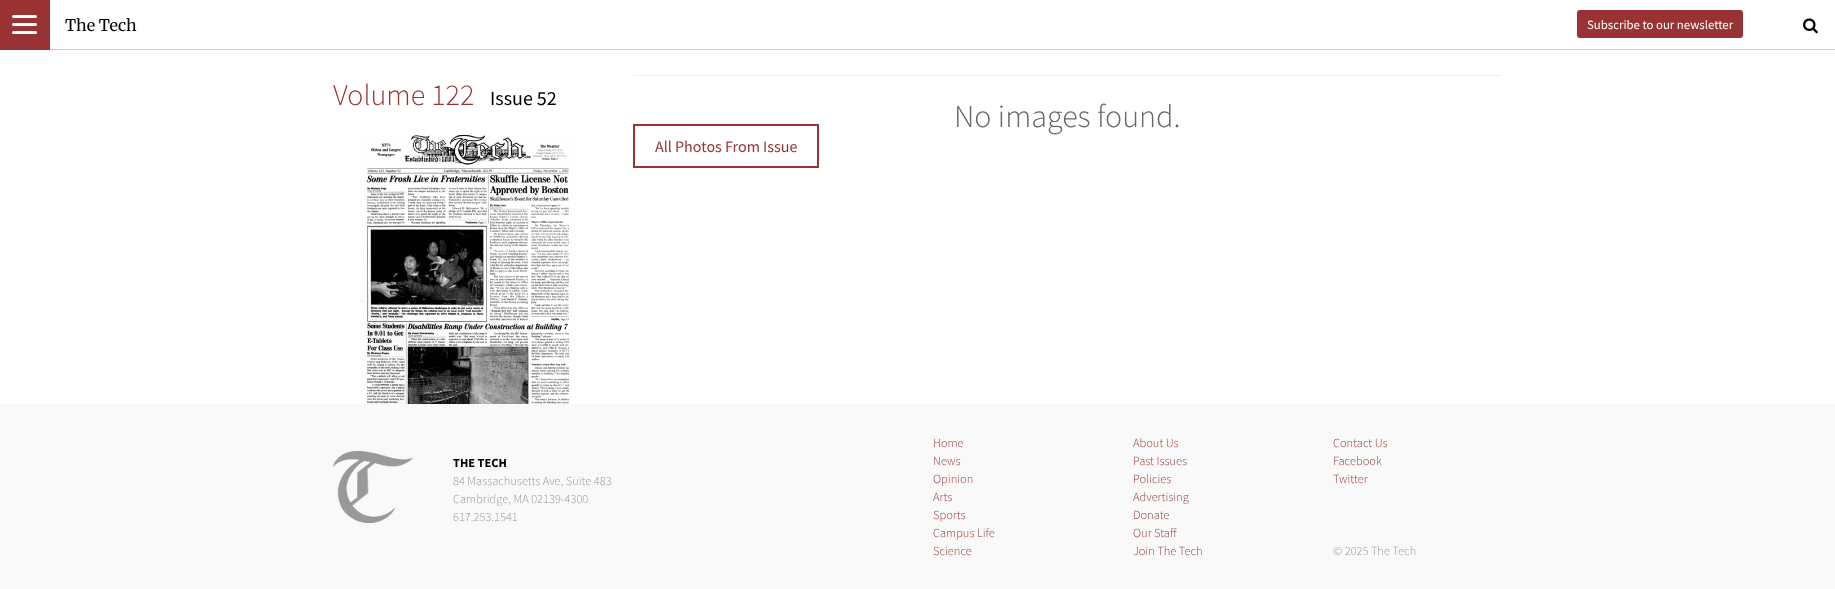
<!DOCTYPE html>
<meta charset="utf-8">
<style>body { margin: 0 } canvas { display: block }</style>
<canvas id="canvas" width="1835" height="589"></canvas>
<script type="module">
  const canvas = document.getElementById("canvas");
  const ctx = canvas.getContext("2d");
  ctx.miterLimit = 4;
  ctx.fontKerning = "normal";
  async function loadImage(src) {
    const img = new Image();
    img.src = src;
    await img.decode();
    return img;
  }

  ctx.fillStyle = "#ffffff";
  ctx.fillRect(0, 0, 1835, 589);
  ctx.fillStyle = "#cccccc";
  ctx.fillRect(50, 49, 1785, 1);
  ctx.fillStyle = "#993333";
  ctx.fillRect(0, 0, 50, 50);
  ctx.fillStyle = "#ffffff";
  ctx.beginPath();
  ctx.roundRect(12, 15, 25, 3, 1.5);
  ctx.fill();
  ctx.beginPath();
  ctx.roundRect(12, 23, 25, 3, 1.5);
  ctx.fill();
  ctx.beginPath();
  ctx.roundRect(12, 31, 25, 3, 1.5);
  ctx.fill();
  ctx.font = "16px Merriweather";
  ctx.fillStyle = "#000000";
  ctx.fillText("The Tech", 65, 31);
  ctx.fillStyle = "#993333";
  ctx.beginPath();
  ctx.roundRect(1577, 10, 166, 28, 3);
  ctx.fill();
  ctx.font = "12.75px Source Sans Pro";
  ctx.fillStyle = "#ffffff";
  ctx.fillText("Subscribe to our newsletter", 1587, 29);
  ctx.drawImage(await loadImage("img1.png"), 1803, 18, 15, 16);
  ctx.font = "300 30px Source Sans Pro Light";
  ctx.fillStyle = "#993333";
  ctx.fillText("Volume 122", 333, 105);
  ctx.font = "20px Source Sans Pro";
  ctx.fillStyle = "#000000";
  ctx.fillText("Issue 52", 490, 105);
  ctx.drawImage(await loadImage("img2.png"), 360, 134, 216, 270);
  ctx.fillStyle = "#eeeeee";
  ctx.fillRect(633, 75, 869, 1);
  ctx.font = "300 32px Source Sans Pro Light";
  ctx.fillStyle = "#666666";
  ctx.fillText("No images found.", 954, 127);
  ctx.strokeStyle = "#993333";
  ctx.lineWidth = 2;
  ctx.strokeRect(634, 125, 184, 42);
  ctx.font = "16px Source Sans Pro";
  ctx.fillStyle = "#993333";
  ctx.fillText("All Photos From Issue", 655, 152);
  ctx.fillStyle = "#f9f9f9";
  ctx.fillRect(0, 404, 1835, 185);
  ctx.drawImage(await loadImage("img3.png"), 333, 451, 80, 72);
  ctx.font = "bold 12.4px Source Sans Pro";
  ctx.fillStyle = "#000000";
  ctx.fillText("THE TECH", 453, 467);
  ctx.font = "300 12.4px Source Sans Pro Light";
  ctx.fillStyle = "#999999";
  ctx.fillText("84 Massachusetts Ave, Suite 483", 453, 485);
  ctx.fillText("Cambridge, MA 02139-4300", 453, 503);
  ctx.fillText("617.253.1541", 453, 521);
  ctx.fillStyle = "#993333";
  ctx.fillText("Home", 933, 447);
  ctx.fillText("News", 933, 465);
  ctx.fillText("Opinion", 933, 483);
  ctx.fillText("Arts", 933, 501);
  ctx.fillText("Sports", 933, 519);
  ctx.fillText("Campus Life", 933, 537);
  ctx.fillText("Science", 933, 555);
  ctx.fillText("About Us", 1133, 447);
  ctx.fillText("Past Issues", 1133, 465);
  ctx.fillText("Policies", 1133, 483);
  ctx.fillText("Advertising", 1133, 501);
  ctx.fillText("Donate", 1133, 519);
  ctx.fillText("Our Staff", 1133, 537);
  ctx.fillText("Join The Tech", 1133, 555);
  ctx.fillText("Contact Us", 1333, 447);
  ctx.fillText("Facebook", 1333, 465);
  ctx.fillText("Twitter", 1333, 483);
  ctx.fillStyle = "#999999";
  ctx.fillText("© 2025 The Tech", 1333, 555);
</script>
